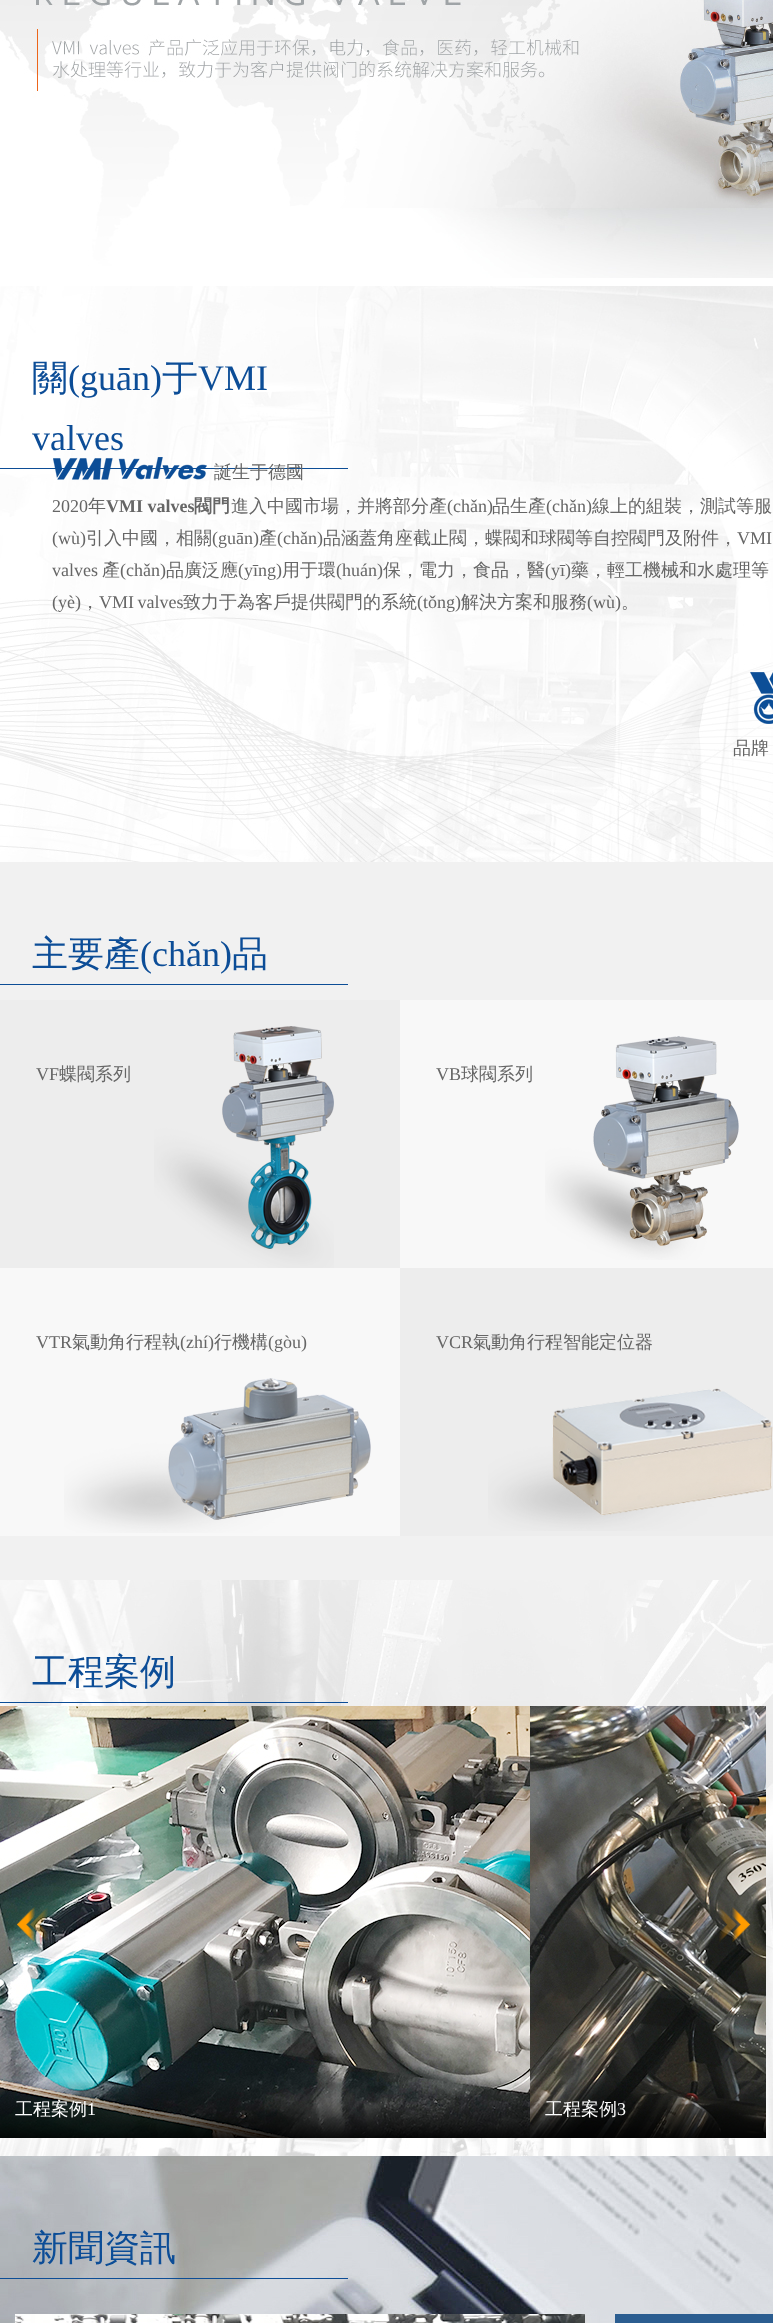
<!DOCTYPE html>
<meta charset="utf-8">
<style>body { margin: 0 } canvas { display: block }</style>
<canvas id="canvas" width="773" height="2323"></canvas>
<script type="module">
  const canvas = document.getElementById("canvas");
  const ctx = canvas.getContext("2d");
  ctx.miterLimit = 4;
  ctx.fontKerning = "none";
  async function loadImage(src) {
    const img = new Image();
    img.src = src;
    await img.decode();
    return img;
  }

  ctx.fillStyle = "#ffffff";
  ctx.fillRect(0, 0, 773, 2323);
  ctx.drawImage(await loadImage("img1.png"), 0, 0, 773, 278);
  ctx.drawImage(await loadImage("img2.png"), 0, 286, 773, 576);
  ctx.fillStyle = "#0c4d96";
  ctx.fillRect(0, 468, 348, 1);
  ctx.font = "500 36px WenQuanYi Zen Hei";
  ctx.fillStyle = "#0c4d97";
  ctx.fillText("關", 32, 390);
  ctx.font = "36px Liberation Serif";
  ctx.fillText("(guān)", 68, 390);
  ctx.font = "500 36px WenQuanYi Zen Hei";
  ctx.fillText("于", 162, 390);
  ctx.font = "36px Liberation Serif";
  ctx.fillText("VMI", 198, 390);
  ctx.fillText("valves", 32, 450);
  ctx.drawImage(await loadImage("img3.png"), 53, 457, 154, 23);
  ctx.font = "500 18px WenQuanYi Zen Hei";
  ctx.fillStyle = "#666666";
  ctx.fillText("誕生于德國", 214, 478);
  ctx.font = "18px Liberation Serif";
  ctx.fillText("2020", 52, 512);
  ctx.font = "500 18px WenQuanYi Zen Hei";
  ctx.fillText("年", 88, 512);
  ctx.font = "bold 18px Liberation Serif";
  ctx.fillText("VMI valves", 106, 512);
  ctx.font = "bold 18px WenQuanYi Zen Hei";
  ctx.fillText("閥門", 194, 512);
  ctx.font = "500 18px WenQuanYi Zen Hei";
  ctx.fillText("進入中國市場，并將部分產", 231, 512);
  ctx.font = "18px Liberation Serif";
  ctx.fillText("(chǎn)", 447, 512);
  ctx.font = "500 18px WenQuanYi Zen Hei";
  ctx.fillText("品生產", 492, 512);
  ctx.font = "18px Liberation Serif";
  ctx.fillText("(chǎn)", 546, 512);
  ctx.font = "500 18px WenQuanYi Zen Hei";
  ctx.fillText("線上的組裝，測試等服", 592, 512);
  ctx.font = "18px Liberation Serif";
  ctx.fillText("(wù)", 52, 544);
  ctx.font = "500 18px WenQuanYi Zen Hei";
  ctx.fillText("引入中國，相關", 86, 544);
  ctx.font = "18px Liberation Serif";
  ctx.fillText("(guān)", 212, 544);
  ctx.font = "500 18px WenQuanYi Zen Hei";
  ctx.fillText("產", 259, 544);
  ctx.font = "18px Liberation Serif";
  ctx.fillText("(chǎn)", 277, 544);
  ctx.font = "500 18px WenQuanYi Zen Hei";
  ctx.fillText("品涵蓋角座截止閥，蝶閥和球閥等自控閥門及附件，", 323, 544);
  ctx.font = "18px Liberation Serif";
  ctx.fillText("VMI", 737, 544);
  ctx.fillText("valves", 52, 576);
  ctx.font = "500 18px WenQuanYi Zen Hei";
  ctx.fillText("產", 102, 576);
  ctx.font = "18px Liberation Serif";
  ctx.fillText("(chǎn)", 120, 576);
  ctx.font = "500 18px WenQuanYi Zen Hei";
  ctx.fillText("品廣泛應", 166, 576);
  ctx.font = "18px Liberation Serif";
  ctx.fillText("(yīng)", 238, 576);
  ctx.font = "500 18px WenQuanYi Zen Hei";
  ctx.fillText("用于環", 282, 576);
  ctx.font = "18px Liberation Serif";
  ctx.fillText("(huán)", 336, 576);
  ctx.font = "500 18px WenQuanYi Zen Hei";
  ctx.fillText("保，電力，食品，醫", 383, 576);
  ctx.font = "18px Liberation Serif";
  ctx.fillText("(yī)", 545, 576);
  ctx.font = "500 18px WenQuanYi Zen Hei";
  ctx.fillText("藥，輕工機械和水處理等", 571, 576);
  ctx.font = "18px Liberation Serif";
  ctx.fillText("(yè)", 52, 608);
  ctx.font = "500 18px WenQuanYi Zen Hei";
  ctx.fillText("，", 81, 608);
  ctx.wordSpacing = "-1px";
  ctx.font = "18px Liberation Serif";
  ctx.fillText("VMI valves", 99, 608);
  ctx.wordSpacing = "0px";
  ctx.font = "500 18px WenQuanYi Zen Hei";
  ctx.fillText("致力于為客戶提供閥門的系統", 183, 608);
  ctx.font = "18px Liberation Serif";
  ctx.fillText("(tǒng)", 417, 608);
  ctx.font = "500 18px WenQuanYi Zen Hei";
  ctx.fillText("解決方案和服務", 461, 608);
  ctx.font = "18px Liberation Serif";
  ctx.fillText("(wù)", 587, 608);
  ctx.font = "500 18px WenQuanYi Zen Hei";
  ctx.fillText("。", 621, 608);
  ctx.drawImage(await loadImage("img4.png"), 750, 672, 23, 52);
  ctx.fillText("品牌", 733, 754);
  ctx.fillStyle = "#f1f1f1";
  ctx.fillRect(0, 862, 773, 718);
  ctx.fillStyle = "#0c4d96";
  ctx.fillRect(0, 984, 348, 1);
  ctx.font = "500 36px WenQuanYi Zen Hei";
  ctx.fillStyle = "#0c4d97";
  ctx.fillText("主要產", 32, 966);
  ctx.font = "36px Liberation Serif";
  ctx.fillText("(chǎn)", 140, 966);
  ctx.font = "500 36px WenQuanYi Zen Hei";
  ctx.fillText("品", 232, 966);
  ctx.fillStyle = "#ededed";
  ctx.fillRect(0, 1000, 400, 268);
  ctx.font = "18px Liberation Serif";
  ctx.fillStyle = "#666666";
  ctx.fillText("VF", 36, 1080);
  ctx.font = "500 18px WenQuanYi Zen Hei";
  ctx.fillText("蝶閥系列", 59, 1080);
  ctx.drawImage(await loadImage("img5.png"), 154, 1026, 180, 242);
  ctx.fillStyle = "#f8f8f8";
  ctx.fillRect(400, 1000, 373, 268);
  ctx.font = "18px Liberation Serif";
  ctx.fillStyle = "#666666";
  ctx.fillText("VB", 436, 1080);
  ctx.font = "500 18px WenQuanYi Zen Hei";
  ctx.fillText("球閥系列", 461, 1080);
  ctx.drawImage(await loadImage("img6.png"), 545, 1036, 194, 224);
  ctx.fillStyle = "#f8f8f8";
  ctx.fillRect(0, 1268, 400, 268);
  ctx.font = "18px Liberation Serif";
  ctx.fillStyle = "#666666";
  ctx.fillText("VTR", 36, 1348);
  ctx.font = "500 18px WenQuanYi Zen Hei";
  ctx.fillText("氣動角行程執", 72, 1348);
  ctx.font = "18px Liberation Serif";
  ctx.fillText("(zhí)", 180, 1348);
  ctx.font = "500 18px WenQuanYi Zen Hei";
  ctx.fillText("行機構", 214, 1348);
  ctx.font = "18px Liberation Serif";
  ctx.fillText("(gòu)", 268, 1348);
  ctx.drawImage(await loadImage("img7.png"), 64, 1378, 307, 155);
  ctx.fillStyle = "#ededed";
  ctx.fillRect(400, 1268, 373, 268);
  ctx.fillStyle = "#666666";
  ctx.fillText("VCR", 436, 1348);
  ctx.font = "500 18px WenQuanYi Zen Hei";
  ctx.fillText("氣動角行程智能定位器", 473, 1348);
  ctx.drawImage(await loadImage("img8.png"), 488, 1388, 285, 143);
  ctx.drawImage(await loadImage("img9.png"), 0, 1580, 773, 576);
  ctx.fillStyle = "#0c4d96";
  ctx.fillRect(0, 1702, 348, 1);
  ctx.font = "500 36px WenQuanYi Zen Hei";
  ctx.fillStyle = "#0c4d97";
  ctx.fillText("工程案例", 32, 1684);
  ctx.drawImage(await loadImage("img12.png"), 0, 1706, 530, 432);
  ctx.drawImage(await loadImage("img10.png"), 16, 1907, 32, 35);
  ctx.drawImage(await loadImage("img13.png"), 530, 1706, 236, 432);
  ctx.drawImage(await loadImage("img11.png"), 719, 1907, 32, 35);
  ctx.font = "500 18px WenQuanYi Zen Hei";
  ctx.fillStyle = "#ffffff";
  ctx.fillText("工程案例", 15, 2115);
  ctx.font = "18px Liberation Serif";
  ctx.fillText("1", 87, 2115);
  ctx.font = "500 18px WenQuanYi Zen Hei";
  ctx.fillText("工程案例", 545, 2115);
  ctx.font = "18px Liberation Serif";
  ctx.fillText("3", 617, 2115);
  ctx.drawImage(await loadImage("img14.png"), 0, 2156, 773, 167);
  ctx.fillStyle = "#0c4d96";
  ctx.fillRect(0, 2278, 348, 1);
  ctx.font = "500 36px WenQuanYi Zen Hei";
  ctx.fillStyle = "#0c4d97";
  ctx.fillText("新聞資訊", 32, 2260);
  ctx.save();
  ctx.beginPath();
  ctx.rect(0, 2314, 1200, 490);
  ctx.clip();
  ctx.fillStyle = "#dddddd";
  ctx.filter = "blur(2.5px)";
  ctx.beginPath();
  ctx.rect(17, 2316, 570, 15);
  ctx.fill();
  ctx.filter = "none";
  ctx.restore();
  ctx.drawImage(await loadImage("img15.png"), 15, 2314, 570, 9);
  ctx.fillStyle = "#2b5d90";
  ctx.fillRect(615, 2314, 158, 9);
</script>
